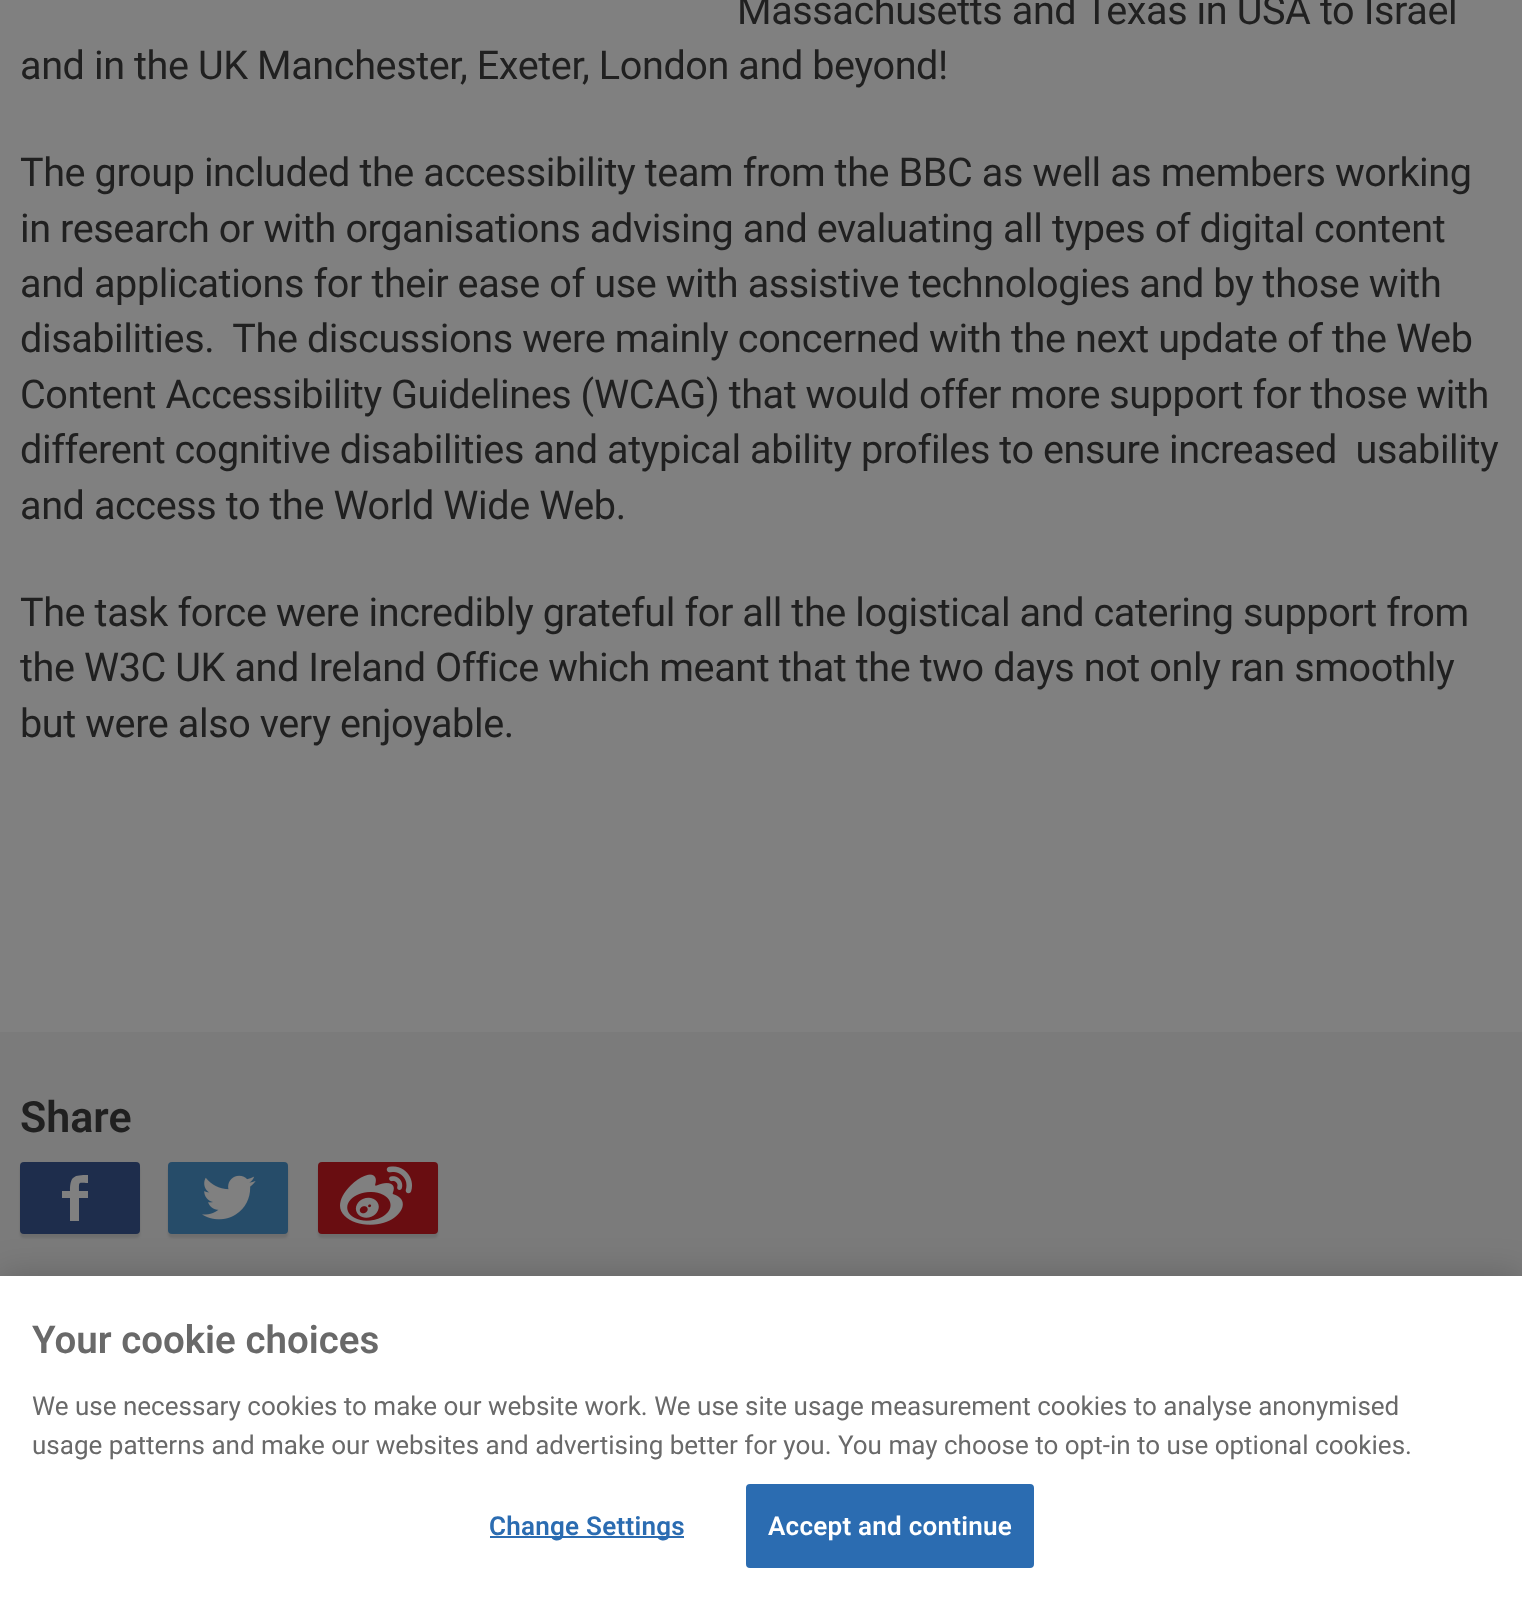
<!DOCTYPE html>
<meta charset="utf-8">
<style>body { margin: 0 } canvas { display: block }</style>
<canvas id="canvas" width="1522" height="1604"></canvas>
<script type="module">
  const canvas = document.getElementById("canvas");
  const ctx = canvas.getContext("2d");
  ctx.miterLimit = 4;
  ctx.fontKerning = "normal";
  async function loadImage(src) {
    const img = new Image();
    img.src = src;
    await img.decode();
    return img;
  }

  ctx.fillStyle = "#808080";
  ctx.fillRect(0, 0, 1522, 1604);
  ctx.letterSpacing = "-0.4px";
  ctx.font = "39.6px Roboto";
  ctx.fillStyle = "#202020";
  ctx.fillText("Massachusetts and Texas in USA to Israel", 737, 24);
  ctx.fillText("and in the UK Manchester, Exeter, London and beyond!", 20, 79);
  ctx.fillText("The group included the accessibility team from the BBC as well as members working", 20, 186);
  ctx.fillText("in research or with organisations advising and evaluating all types of digital content", 20, 242);
  ctx.fillText("and applications for their ease of use with assistive technologies and by those with", 20, 297);
  ctx.fillText("disabilities.  The discussions were mainly concerned with the next update of the Web", 20, 352);
  ctx.wordSpacing = "-0.1px";
  ctx.fillText("Content Accessibility Guidelines (WCAG) that would offer more support for those with", 20, 408);
  ctx.fillText("different cognitive disabilities and atypical ability profiles to ensure increased  usability", 20, 463);
  ctx.wordSpacing = "0px";
  ctx.fillText("and access to the World Wide Web.", 20, 519);
  ctx.fillText("The task force were incredibly grateful for all the logistical and catering support from", 20, 626);
  ctx.fillText("the W3C UK and Ireland Office which meant that the two days not only ran smoothly", 20, 681);
  ctx.fillText("but were also very enjoyable.", 20, 737);
  ctx.fillStyle = "#7b7b7b";
  ctx.fillRect(0, 1032, 1522, 244);
  ctx.letterSpacing = "0px";
  ctx.font = "600 43px Roboto";
  ctx.fillStyle = "#202020";
  ctx.fillText("Share", 20, 1132);
  ctx.fillStyle = "rgba(0, 0, 0, 0.1)";
  ctx.filter = "blur(1px)";
  ctx.beginPath();
  ctx.roundRect(20, 1166, 120, 72, 4);
  ctx.fill();
  ctx.filter = "none";
  ctx.fillStyle = "#1e2d4c";
  ctx.beginPath();
  ctx.roundRect(20, 1162, 120, 72, 4);
  ctx.fill();
  ctx.fillStyle = "#808080";
  ctx.beginPath();
  ctx.moveTo(88, 1183);
  ctx.bezierCurveTo(78, 1183, 79, 1181, 79, 1191);
  ctx.lineTo(88, 1191);
  ctx.lineTo(88, 1198);
  ctx.lineTo(79, 1198);
  ctx.lineTo(79, 1221);
  ctx.lineTo(70, 1221);
  ctx.lineTo(70, 1198);
  ctx.lineTo(62, 1198);
  ctx.lineTo(62, 1191);
  ctx.lineTo(70, 1191);
  ctx.bezierCurveTo(70, 1176, 74, 1175, 88, 1175);
  ctx.closePath();
  ctx.fill();
  ctx.fillStyle = "rgba(0, 0, 0, 0.1)";
  ctx.filter = "blur(1px)";
  ctx.beginPath();
  ctx.roundRect(168, 1166, 120, 72, 4);
  ctx.fill();
  ctx.filter = "none";
  ctx.fillStyle = "#264c69";
  ctx.beginPath();
  ctx.roundRect(168, 1162, 120, 72, 4);
  ctx.fill();
  ctx.drawImage(await loadImage("img1.png"), 202, 1175, 54, 45);
  ctx.fillStyle = "rgba(0, 0, 0, 0.1)";
  ctx.filter = "blur(1px)";
  ctx.beginPath();
  ctx.roundRect(318, 1166, 120, 72, 4);
  ctx.fill();
  ctx.filter = "none";
  ctx.fillStyle = "#690d11";
  ctx.beginPath();
  ctx.roundRect(318, 1162, 120, 72, 4);
  ctx.fill();
  ctx.drawImage(await loadImage("img2.png"), 340, 1166, 72, 59);
  ctx.fillStyle = "rgba(0, 0, 0, 0.2)";
  ctx.filter = "blur(18px)";
  ctx.beginPath();
  ctx.rect(0, 1276, 1522, 328);
  ctx.fill();
  ctx.filter = "none";
  ctx.fillStyle = "#ffffff";
  ctx.fillRect(0, 1276, 1522, 328);
  ctx.font = "600 38.5px Roboto";
  ctx.fillStyle = "#696969";
  ctx.fillText("Your cookie choices", 32, 1353);
  ctx.font = "26.02px Roboto";
  ctx.fillText("We use necessary cookies to make our website work. We use site usage measurement cookies to analyse anonymised", 32, 1415);
  ctx.fillText("usage patterns and make our websites and advertising better for you. You may choose to opt-in to use optional cookies.", 32, 1454);
  ctx.fillStyle = "#2b6cb1";
  ctx.fillRect(490, 1536, 194, 2);
  ctx.letterSpacing = "0.25px";
  ctx.font = "600 26.02px Roboto";
  ctx.fillText("Change Settings", 489, 1535);
  ctx.beginPath();
  ctx.roundRect(747, 1485, 286, 82, 3);
  ctx.fill();
  ctx.strokeStyle = "#2b6cb1";
  ctx.lineWidth = 2;
  ctx.stroke();
  ctx.fillStyle = "#ffffff";
  ctx.fillText("Accept and continue", 768, 1535);
</script>
